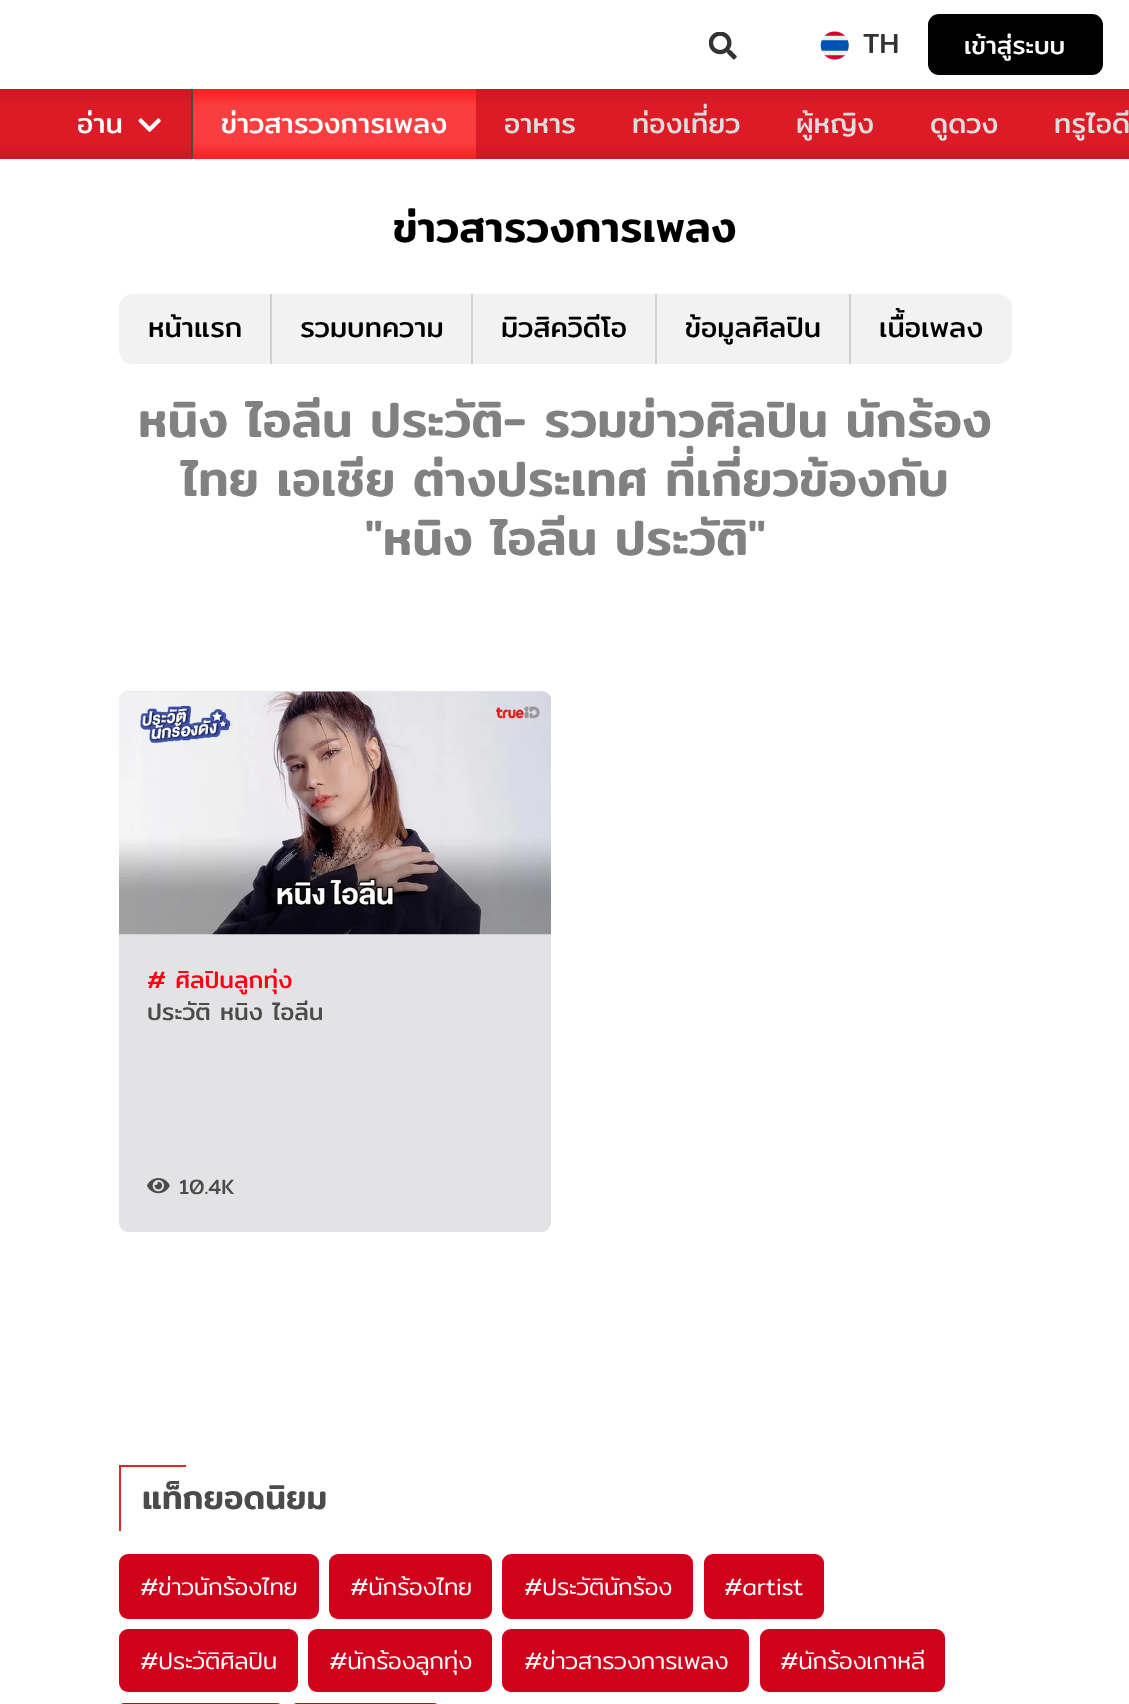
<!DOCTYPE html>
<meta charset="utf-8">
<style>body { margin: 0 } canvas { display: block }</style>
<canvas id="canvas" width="1129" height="1704"></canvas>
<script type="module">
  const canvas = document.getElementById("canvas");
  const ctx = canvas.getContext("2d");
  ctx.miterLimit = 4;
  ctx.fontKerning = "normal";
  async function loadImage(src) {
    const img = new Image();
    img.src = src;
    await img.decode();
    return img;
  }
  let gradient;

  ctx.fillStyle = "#ffffff";
  ctx.fillRect(0, 0, 1129, 1704);
  ctx.drawImage(await loadImage("img1.png"), 709, 32, 28, 28);
  ctx.fillStyle = "#efefef";
  ctx.beginPath();
  ctx.arc(835, 46, 14, 0, Math.PI * 2);
  ctx.fill();
  ctx.drawImage(await loadImage("img2.png"), 820, 31, 29, 29);
  ctx.font = "28px Mitr";
  ctx.fillStyle = "#333333";
  ctx.fillText("TH", 863, 53);
  ctx.fillStyle = "#000000";
  ctx.beginPath();
  ctx.roundRect(928, 14, 175, 61, 11);
  ctx.fill();
  ctx.font = "25px Mitr";
  ctx.fillStyle = "#ffffff";
  ctx.fillText("เข้าสู่ระบบ", 964, 54);
  gradient = ctx.createLinearGradient(565, 159, 565, 89);
  gradient.addColorStop(0, "#cc1922");
  gradient.addColorStop(0.25, "#dd1b26");
  gradient.addColorStop(0.75, "#dd1b26");
  gradient.addColorStop(1, "#cc1922");
  ctx.fillStyle = gradient;
  ctx.fillRect(0, 89, 1129, 70);
  ctx.fillStyle = "#484848";
  ctx.fillRect(191, 89, 2, 70);
  ctx.font = "28px Mitr";
  ctx.fillStyle = "#ffffff";
  ctx.fillText("อ่าน", 77, 133);
  ctx.drawImage(await loadImage("img3.png"), 138, 118, 23, 14);
  gradient = ctx.createLinearGradient(334, 159, 334, 89);
  gradient.addColorStop(0, "#f91f1f");
  gradient.addColorStop(0.25, "#fa3e3f");
  gradient.addColorStop(0.75, "#fa3e3f");
  gradient.addColorStop(1, "#f91f1f");
  ctx.fillStyle = gradient;
  ctx.fillRect(193, 89, 283, 70);
  ctx.fillStyle = "#ffffff";
  ctx.fillText("ข่าวสารวงการเพลง", 221, 133);
  ctx.fillStyle = "#dddddd";
  ctx.fillText("อาหาร", 504, 133);
  ctx.fillText("ท่องเที่ยว", 632, 133);
  ctx.fillText("ผู้หญิง", 796, 133);
  ctx.fillText("ดูดวง", 930, 133);
  ctx.fillText("ทรูไอดี", 1054, 133);
  ctx.font = "500 42px Mitr";
  ctx.fillStyle = "#000000";
  ctx.fillText("ข่าวสารวงการเพลง", 393, 242);
  ctx.fillStyle = "#f2f2f2";
  ctx.beginPath();
  ctx.roundRect(119, 294, 151, 70, [14, 0, 0, 14]);
  ctx.fill();
  ctx.font = "28px Mitr";
  ctx.fillStyle = "#000000";
  ctx.fillText("หน้าแรก", 148, 337);
  ctx.fillStyle = "#f2f2f2";
  ctx.fillRect(272, 294, 199, 70);
  ctx.fillStyle = "#d1d1d1";
  ctx.fillRect(270, 294, 2, 70);
  ctx.fillStyle = "#000000";
  ctx.fillText("รวมบทความ", 300, 337);
  ctx.fillStyle = "#f2f2f2";
  ctx.fillRect(473, 294, 182, 70);
  ctx.fillStyle = "#d1d1d1";
  ctx.fillRect(471, 294, 2, 70);
  ctx.fillStyle = "#000000";
  ctx.fillText("มิวสิควิดีโอ", 501, 337);
  ctx.fillStyle = "#f2f2f2";
  ctx.fillRect(657, 294, 192, 70);
  ctx.fillStyle = "#d1d1d1";
  ctx.fillRect(655, 294, 2, 70);
  ctx.fillStyle = "#000000";
  ctx.fillText("ข้อมูลศิลปิน", 685, 337);
  ctx.fillStyle = "#f2f2f2";
  ctx.beginPath();
  ctx.roundRect(849, 294, 163, 70, [0, 14, 14, 0]);
  ctx.fill();
  ctx.fillStyle = "#d1d1d1";
  ctx.fillRect(849, 294, 2, 70);
  ctx.fillStyle = "#000000";
  ctx.fillText("เนื้อเพลง", 879, 337);
  ctx.font = "500 49px Mitr";
  ctx.fillStyle = "#818181";
  ctx.fillText("หนิง ไอลีน ประวัติ- รวมข่าวศิลปิน นักร้อง", 138, 437);
  ctx.fillText("ไทย เอเชีย ต่างประเทศ ที่เกี่ยวข้องกับ", 181, 496);
  ctx.fillText("\"หนิง ไอลีน ประวัติ\"", 365, 555);
  ctx.fillStyle = "#e3e3e6";
  ctx.beginPath();
  ctx.roundRect(119, 691, 432, 541, 9);
  ctx.fill();
  ctx.drawImage(await loadImage("img4.png"), 119, 691, 432, 244);
  ctx.font = "23.75px Mitr";
  ctx.fillStyle = "#ff0012";
  ctx.fillText("# ศิลปินลูกทุ่ง", 147, 988);
  ctx.fillStyle = "#4b4b4b";
  ctx.fillText("ประวัติ หนิง ไอลีน", 147, 1020);
  ctx.drawImage(await loadImage("img5.png"), 147, 1178, 23, 16);
  ctx.font = "21px Mitr";
  ctx.fillText("10.4K", 179, 1194);
  ctx.fillStyle = "#e02528";
  ctx.fillRect(119, 1465, 67, 2);
  ctx.fillRect(119, 1465, 2, 66);
  ctx.font = "500 33.25px Mitr";
  ctx.fillStyle = "#4b4b4b";
  ctx.fillText("แท็กยอดนิยม", 142, 1509);
  ctx.fillStyle = "#d0021b";
  ctx.beginPath();
  ctx.roundRect(119, 1554, 200, 65, 9);
  ctx.fill();
  ctx.letterSpacing = "-0.3px";
  ctx.font = "300 23.75px Mitr";
  ctx.fillStyle = "#ffffff";
  ctx.fillText("#ข่าวนักร้องไทย", 140, 1595);
  ctx.fillStyle = "#d0021b";
  ctx.beginPath();
  ctx.roundRect(329, 1554, 163, 65, 9);
  ctx.fill();
  ctx.fillStyle = "#ffffff";
  ctx.fillText("#นักร้องไทย", 350, 1595);
  ctx.fillStyle = "#d0021b";
  ctx.beginPath();
  ctx.roundRect(502, 1554, 191, 65, 9);
  ctx.fill();
  ctx.fillStyle = "#ffffff";
  ctx.fillText("#ประวัตินักร้อง", 524, 1595);
  ctx.fillStyle = "#d0021b";
  ctx.beginPath();
  ctx.roundRect(704, 1554, 120, 65, 9);
  ctx.fill();
  ctx.fillStyle = "#ffffff";
  ctx.fillText("#artist", 724, 1595);
  ctx.fillStyle = "#d0021b";
  ctx.beginPath();
  ctx.roundRect(119, 1629, 179, 63, 9);
  ctx.fill();
  ctx.fillStyle = "#ffffff";
  ctx.fillText("#ประวัติศิลปิน", 140, 1669);
  ctx.fillStyle = "#d0021b";
  ctx.beginPath();
  ctx.roundRect(308, 1629, 184, 63, 9);
  ctx.fill();
  ctx.fillStyle = "#ffffff";
  ctx.fillText("#นักร้องลูกทุ่ง", 329, 1669);
  ctx.fillStyle = "#d0021b";
  ctx.beginPath();
  ctx.roundRect(502, 1629, 247, 63, 9);
  ctx.fill();
  ctx.fillStyle = "#ffffff";
  ctx.fillText("#ข่าวสารวงการเพลง", 524, 1669);
  ctx.fillStyle = "#d0021b";
  ctx.beginPath();
  ctx.roundRect(760, 1629, 185, 63, 9);
  ctx.fill();
  ctx.fillStyle = "#ffffff";
  ctx.fillText("#นักร้องเกาหลี", 780, 1669);
  ctx.fillStyle = "#d0021b";
  ctx.beginPath();
  ctx.roundRect(119, 1703, 163, 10, 9);
  ctx.fill();
  ctx.beginPath();
  ctx.roundRect(292, 1703, 147, 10, 9);
  ctx.fill();
</script>
